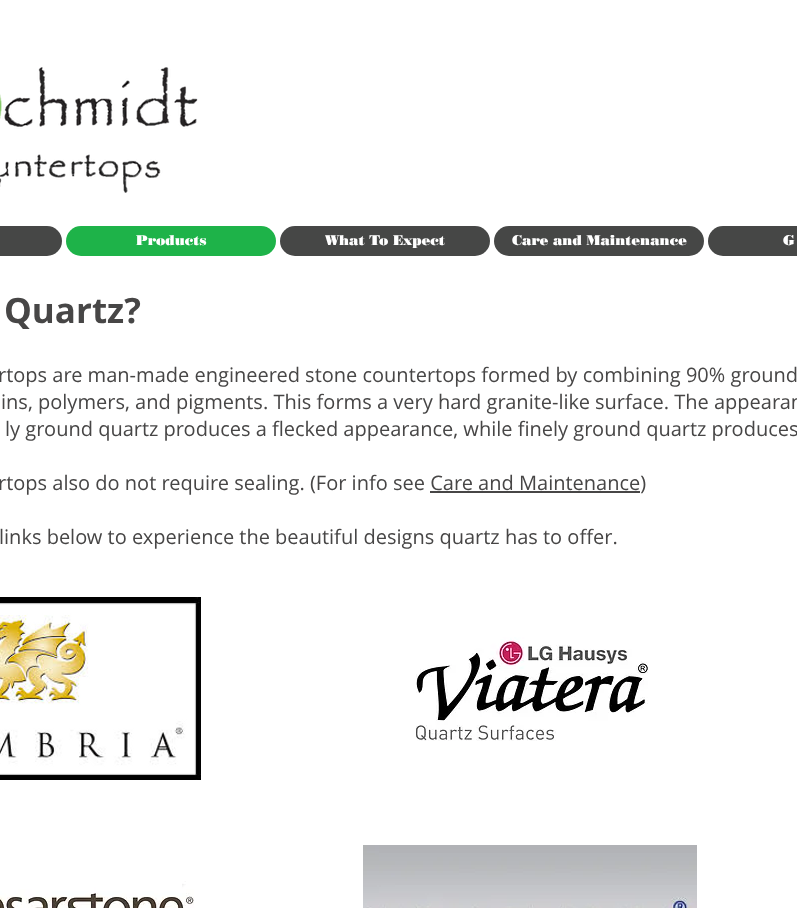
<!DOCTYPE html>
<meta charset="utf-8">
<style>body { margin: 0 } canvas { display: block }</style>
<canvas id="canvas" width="797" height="908"></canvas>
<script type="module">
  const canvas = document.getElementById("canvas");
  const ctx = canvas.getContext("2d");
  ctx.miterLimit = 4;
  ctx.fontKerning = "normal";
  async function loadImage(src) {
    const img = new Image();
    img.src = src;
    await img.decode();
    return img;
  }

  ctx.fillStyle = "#ffffff";
  ctx.fillRect(0, 0, 797, 908);
  ctx.drawImage(await loadImage("img1.png"), 0, 67, 198, 126);
  ctx.fillStyle = "#464746";
  ctx.beginPath();
  ctx.roundRect(-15, 226, 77, 30, 15);
  ctx.fill();
  ctx.fillStyle = "#1eb349";
  ctx.beginPath();
  ctx.roundRect(66, 226, 210, 30, 15);
  ctx.fill();
  ctx.font = "900 14px 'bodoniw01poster'";
  ctx.fillStyle = "#ffffff";
  ctx.fillText("Products", 136, 245);
  ctx.fillStyle = "#464746";
  ctx.beginPath();
  ctx.roundRect(280, 226, 210, 30, 15);
  ctx.fill();
  ctx.fillStyle = "#ffffff";
  ctx.fillText("What To Expect", 325, 245);
  ctx.fillStyle = "#464746";
  ctx.beginPath();
  ctx.roundRect(494, 226, 210, 30, 15);
  ctx.fill();
  ctx.fillStyle = "#ffffff";
  ctx.fillText("Care and Maintenance", 512, 245);
  ctx.fillStyle = "#464746";
  ctx.beginPath();
  ctx.roundRect(708, 226, 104, 30, 15);
  ctx.fill();
  ctx.fillStyle = "#ffffff";
  ctx.fillText("G", 783, 245);
  ctx.font = "bold 35px Open Sans";
  ctx.fillStyle = "#474646";
  ctx.fillText("Quartz?", 4, 323);
  ctx.font = "20px Open Sans";
  ctx.fillText("rtops are man-made engineered stone countertops formed by combining 90% ground", -2, 382);
  ctx.fillText("ins, polymers, and pigments. This forms a very hard granite-like surface. The appearan", 1, 409);
  ctx.fillText("ly ground quartz produces a flecked appearance, while finely ground quartz produces", 5, 436);
  ctx.fillText("rtops also do not require sealing. (For info see Care and Maintenance)", -2, 490);
  ctx.fillRect(430, 491, 210, 2);
  ctx.fillText("links below to experience the beautiful designs quartz has to offer.", -1, 544);
  ctx.drawImage(await loadImage("img2.png"), 0, 597, 201, 183);
  ctx.drawImage(await loadImage("img3.png"), 416, 637, 232, 104);
  ctx.drawImage(await loadImage("img4.png"), 0, 881, 194, 27);
  ctx.drawImage(await loadImage("img5.png"), 363, 845, 334, 63);
</script>
